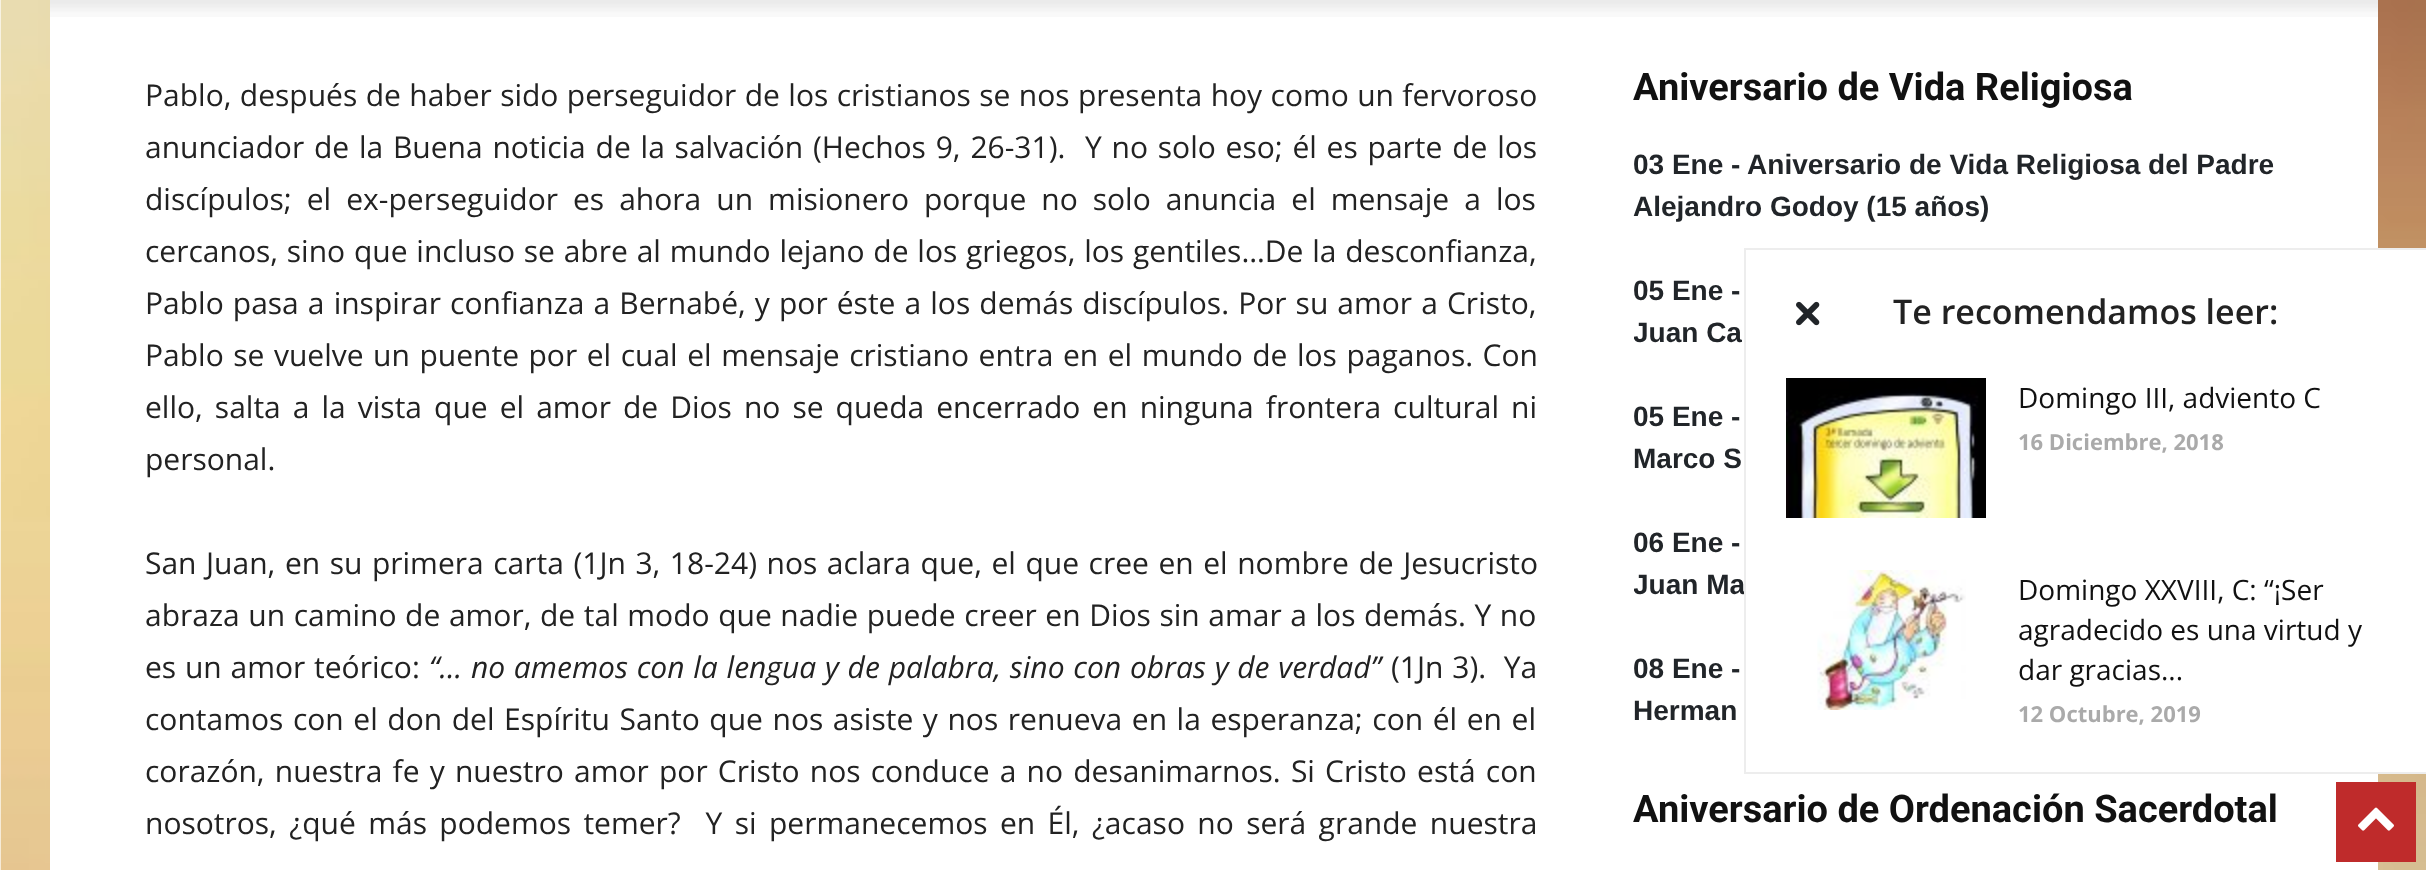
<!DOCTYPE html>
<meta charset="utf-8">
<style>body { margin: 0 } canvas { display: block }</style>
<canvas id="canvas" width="2426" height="870"></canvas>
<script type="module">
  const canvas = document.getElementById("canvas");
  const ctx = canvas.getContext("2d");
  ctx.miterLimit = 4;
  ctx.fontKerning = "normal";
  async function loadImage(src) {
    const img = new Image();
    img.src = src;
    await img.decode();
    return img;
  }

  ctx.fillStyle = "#ffffff";
  ctx.fillRect(0, 0, 2426, 870);
  ctx.drawImage(await loadImage("img1.png"), 0, 0, 2426, 870);
  ctx.fillRect(50, 0, 2328, 870);
  ctx.drawImage(await loadImage("img2.png"), 50, 0, 2328, 17);
  ctx.wordSpacing = "0.6px";
  ctx.font = "30px Open Sans";
  ctx.fillStyle = "#222222";
  ctx.fillText("Pablo, después de haber sido perseguidor de los cristianos se nos presenta hoy como un fervoroso", 145, 106);
  ctx.wordSpacing = "2px";
  ctx.fillText("anunciador de la Buena noticia de la salvación (Hechos 9, 26-31).  Y no solo eso; él es parte de los", 145, 158);
  ctx.wordSpacing = "7.25px";
  ctx.fillText("discípulos; el ex-perseguidor es ahora un misionero porque no solo anuncia el mensaje a los", 145, 210);
  ctx.wordSpacing = "1px";
  ctx.fillText("cercanos, sino que incluso se abre al mundo lejano de los griegos, los gentiles…De la desconfianza,", 145, 262);
  ctx.wordSpacing = "1.3px";
  ctx.fillText("Pablo pasa a inspirar confianza a Bernabé, y por éste a los demás discípulos. Por su amor a Cristo,", 145, 314);
  ctx.wordSpacing = "1.75px";
  ctx.fillText("Pablo se vuelve un puente por el cual el mensaje cristiano entra en el mundo de los paganos. Con", 145, 366);
  ctx.wordSpacing = "4.25px";
  ctx.fillText("ello, salta a la vista que el amor de Dios no se queda encerrado en ninguna frontera cultural ni", 145, 418);
  ctx.wordSpacing = "0px";
  ctx.fillText("personal.", 145, 470);
  ctx.wordSpacing = "1.75px";
  ctx.fillText("San Juan, en su primera carta (1Jn 3, 18-24) nos aclara que, el que cree en el nombre de Jesucristo", 145, 574);
  ctx.wordSpacing = "0.8px";
  ctx.fillText("abraza un camino de amor, de tal modo que nadie puede creer en Dios sin amar a los demás. Y no", 145, 626);
  ctx.wordSpacing = "1px";
  ctx.fillText("es un amor teórico:", 145, 678);
  ctx.font = "italic 30px Open Sans";
  ctx.fillText("“… no amemos con la lengua y de palabra, sino con obras y de verdad”", 429, 678);
  ctx.font = "30px Open Sans";
  ctx.fillText("(1Jn 3).  Ya", 1391, 678);
  ctx.wordSpacing = "1.8px";
  ctx.fillText("contamos con el don del Espíritu Santo que nos asiste y nos renueva en la esperanza; con él en el", 145, 730);
  ctx.wordSpacing = "2.4px";
  ctx.fillText("corazón, nuestra fe y nuestro amor por Cristo nos conduce a no desanimarnos. Si Cristo está con", 145, 782);
  ctx.wordSpacing = "4.6px";
  ctx.fillText("nosotros, ¿qué más podemos temer?  Y si permanecemos en Él, ¿acaso no será grande nuestra", 145, 834);
  ctx.wordSpacing = "0px";
  ctx.font = "bold 38px Roboto";
  ctx.fillStyle = "#111111";
  ctx.fillText("Aniversario de Vida Religiosa", 1633, 100);
  ctx.font = "bold 28px Liberation Sans";
  ctx.fillStyle = "#212529";
  ctx.fillText("03 Ene - Aniversario de Vida Religiosa del Padre", 1633, 174);
  ctx.fillText("Alejandro Godoy (15 años)", 1633, 216);
  ctx.fillText("05 Ene -", 1633, 300);
  ctx.save();
  ctx.beginPath();
  ctx.rect(1634, 0, 648, 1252);
  ctx.clip();
  ctx.fillText("Juan Ca", 1633, 342);
  ctx.restore();
  ctx.fillText("05 Ene -", 1633, 426);
  ctx.fillText("Marco S", 1633, 468);
  ctx.fillText("06 Ene -", 1633, 552);
  ctx.save();
  ctx.beginPath();
  ctx.rect(1634, 0, 648, 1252);
  ctx.clip();
  ctx.fillText("Juan Ma", 1633, 594);
  ctx.restore();
  ctx.fillText("08 Ene -", 1633, 678);
  ctx.fillText("Herman", 1633, 720);
  ctx.font = "bold 38px Roboto";
  ctx.fillStyle = "#111111";
  ctx.fillText("Aniversario de Ordenación Sacerdotal", 1633, 822);
  ctx.fillStyle = "#ffffff";
  ctx.fillRect(2378, 250, 48, 522);
  ctx.fillStyle = "#ededed";
  ctx.fillRect(1744, 248, 682, 2);
  ctx.fillRect(1744, 772, 682, 2);
  ctx.fillRect(1744, 248, 2, 526);
  ctx.drawImage(await loadImage("img3.png"), 1796, 301, 24, 25);
  ctx.font = "600 34px Open Sans";
  ctx.fillStyle = "#222222";
  ctx.fillText("Te recomendamos leer:", 1893, 324);
  ctx.drawImage(await loadImage("img4.png"), 1786, 378, 200, 140);
  ctx.font = "28px Open Sans";
  ctx.fillStyle = "#111111";
  ctx.fillText("Domingo III, adviento C", 2018, 408);
  ctx.font = "bold 22px Open Sans";
  ctx.fillStyle = "#aaaaaa";
  ctx.fillText("16 Diciembre, 2018", 2018, 450);
  ctx.drawImage(await loadImage("img5.png"), 1817, 570, 149, 140);
  ctx.font = "28px Open Sans";
  ctx.fillStyle = "#111111";
  ctx.fillText("Domingo XXVIII, C: “¡Ser", 2018, 600);
  ctx.fillText("agradecido es una virtud y", 2018, 640);
  ctx.fillText("dar gracias...", 2018, 680);
  ctx.font = "bold 22px Open Sans";
  ctx.fillStyle = "#aaaaaa";
  ctx.fillText("12 Octubre, 2019", 2018, 722);
  ctx.fillStyle = "#bf2b2b";
  ctx.fillRect(2336, 782, 80, 80);
  ctx.drawImage(await loadImage("img6.png"), 2358, 807, 36, 24);
</script>
